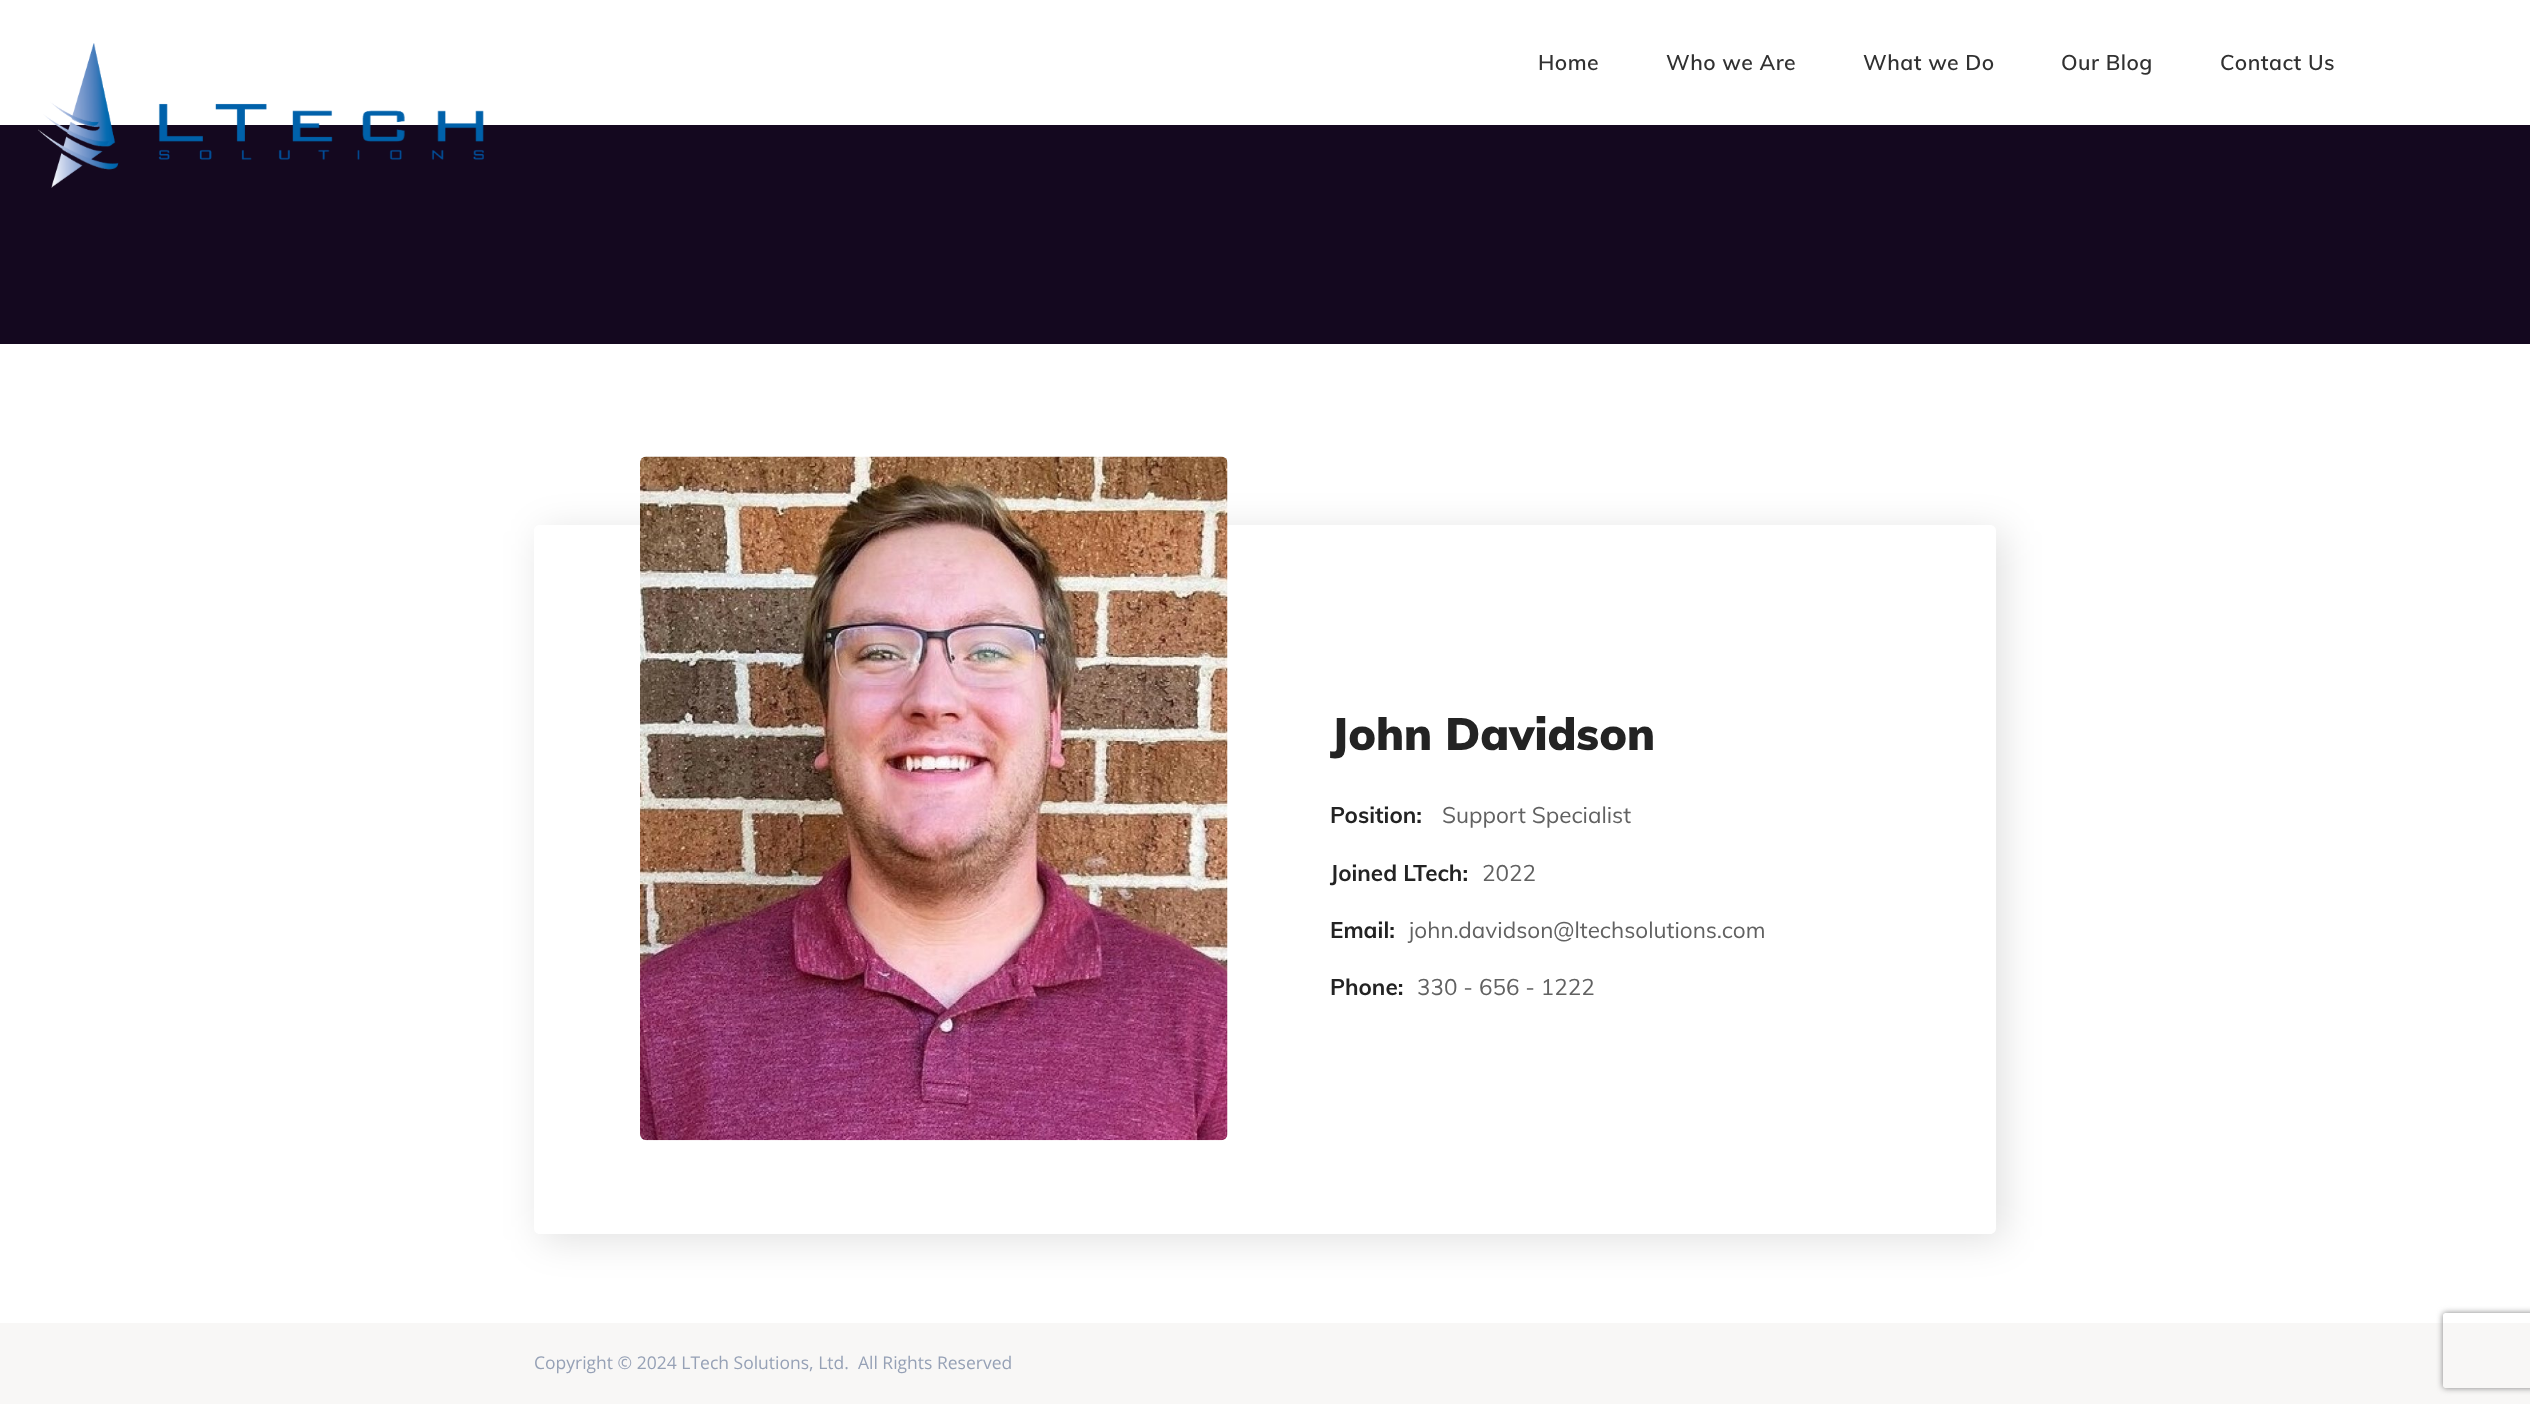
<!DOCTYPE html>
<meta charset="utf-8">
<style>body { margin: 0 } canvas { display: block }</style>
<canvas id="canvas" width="2530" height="1404"></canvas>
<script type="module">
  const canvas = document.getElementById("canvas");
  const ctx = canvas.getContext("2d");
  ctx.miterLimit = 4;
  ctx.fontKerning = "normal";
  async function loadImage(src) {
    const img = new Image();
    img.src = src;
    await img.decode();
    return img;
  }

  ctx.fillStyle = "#ffffff";
  ctx.fillRect(0, 0, 2530, 1404);
  ctx.fillStyle = "#14081f";
  ctx.fillRect(0, 125, 2530, 219);
  ctx.drawImage(await loadImage("img1.png"), 38, 43, 446, 145);
  ctx.letterSpacing = "0.5px";
  ctx.font = "600 21.25px Muli";
  ctx.fillStyle = "#313131";
  ctx.fillText("Home", 1538, 70);
  ctx.fillText("Who we Are", 1666, 70);
  ctx.fillText("What we Do", 1863, 70);
  ctx.fillText("Our Blog", 2061, 70);
  ctx.fillText("Contact Us", 2220, 70);
  ctx.save();
  ctx.beginPath();
  ctx.moveTo(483, 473);
  ctx.lineTo(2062, 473);
  ctx.lineTo(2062, 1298);
  ctx.lineTo(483, 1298);
  ctx.closePath();
  ctx.moveTo(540, 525);
  ctx.lineTo(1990, 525);
  ctx.bezierCurveTo(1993.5, 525, 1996, 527.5, 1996, 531);
  ctx.lineTo(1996, 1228);
  ctx.bezierCurveTo(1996, 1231.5, 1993.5, 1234, 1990, 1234);
  ctx.lineTo(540, 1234);
  ctx.bezierCurveTo(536.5, 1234, 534, 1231.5, 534, 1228);
  ctx.lineTo(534, 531);
  ctx.bezierCurveTo(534, 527.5, 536.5, 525, 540, 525);
  ctx.closePath();
  ctx.clip("evenodd");
  ctx.fillStyle = "rgba(0, 0, 0, 0.12)";
  ctx.filter = "blur(19px)";
  ctx.beginPath();
  ctx.roundRect(541, 531, 1463, 709, 6);
  ctx.fill();
  ctx.filter = "none";
  ctx.restore();
  ctx.drawImage(await loadImage("img2.png"), 640, 456, 588, 685);
  ctx.letterSpacing = "0px";
  ctx.font = "900 45px Muli";
  ctx.fillStyle = "#232323";
  ctx.fillText("John Davidson", 1330, 750);
  ctx.font = "bold 22.5px Muli";
  ctx.fillText("Position:", 1330, 823);
  ctx.font = "22.5px Muli";
  ctx.fillStyle = "#616161";
  ctx.fillText("Support Specialist", 1442, 823);
  ctx.font = "bold 22.5px Muli";
  ctx.fillStyle = "#232323";
  ctx.fillText("Joined LTech:", 1330, 881);
  ctx.font = "22.5px Muli";
  ctx.fillStyle = "#616161";
  ctx.fillText("2022", 1482, 881);
  ctx.font = "bold 22.5px Muli";
  ctx.fillStyle = "#232323";
  ctx.fillText("Email:", 1330, 938);
  ctx.font = "22.5px Muli";
  ctx.fillStyle = "#616161";
  ctx.fillText("john.davidson@ltechsolutions.com", 1409, 938);
  ctx.font = "bold 22.5px Muli";
  ctx.fillStyle = "#232323";
  ctx.fillText("Phone:", 1330, 995);
  ctx.font = "22.5px Muli";
  ctx.fillStyle = "#616161";
  ctx.fillText("330 - 656 - 1222", 1417, 995);
  ctx.fillStyle = "#f8f7f6";
  ctx.fillRect(0, 1323, 2530, 81);
  ctx.font = "17.5px Open Sans";
  ctx.fillStyle = "#96a1b6";
  ctx.fillText("Copyright © 2024 LTech Solutions, Ltd.  All Rights Reserved", 534, 1369);
  ctx.save();
  ctx.beginPath();
  ctx.moveTo(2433, 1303);
  ctx.lineTo(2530, 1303);
  ctx.lineTo(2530, 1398);
  ctx.lineTo(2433, 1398);
  ctx.closePath();
  ctx.moveTo(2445.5, 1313);
  ctx.lineTo(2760.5, 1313);
  ctx.bezierCurveTo(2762, 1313, 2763, 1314, 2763, 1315.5);
  ctx.lineTo(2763, 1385.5);
  ctx.bezierCurveTo(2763, 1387, 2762, 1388, 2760.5, 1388);
  ctx.lineTo(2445.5, 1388);
  ctx.bezierCurveTo(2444, 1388, 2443, 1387, 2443, 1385.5);
  ctx.lineTo(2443, 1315.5);
  ctx.bezierCurveTo(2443, 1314, 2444, 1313, 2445.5, 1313);
  ctx.closePath();
  ctx.clip("evenodd");
  ctx.fillStyle = "#808080";
  ctx.filter = "blur(3px)";
  ctx.beginPath();
  ctx.roundRect(2443, 1313, 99, 75, 2.5);
  ctx.fill();
  ctx.filter = "none";
  ctx.restore();
</script>
